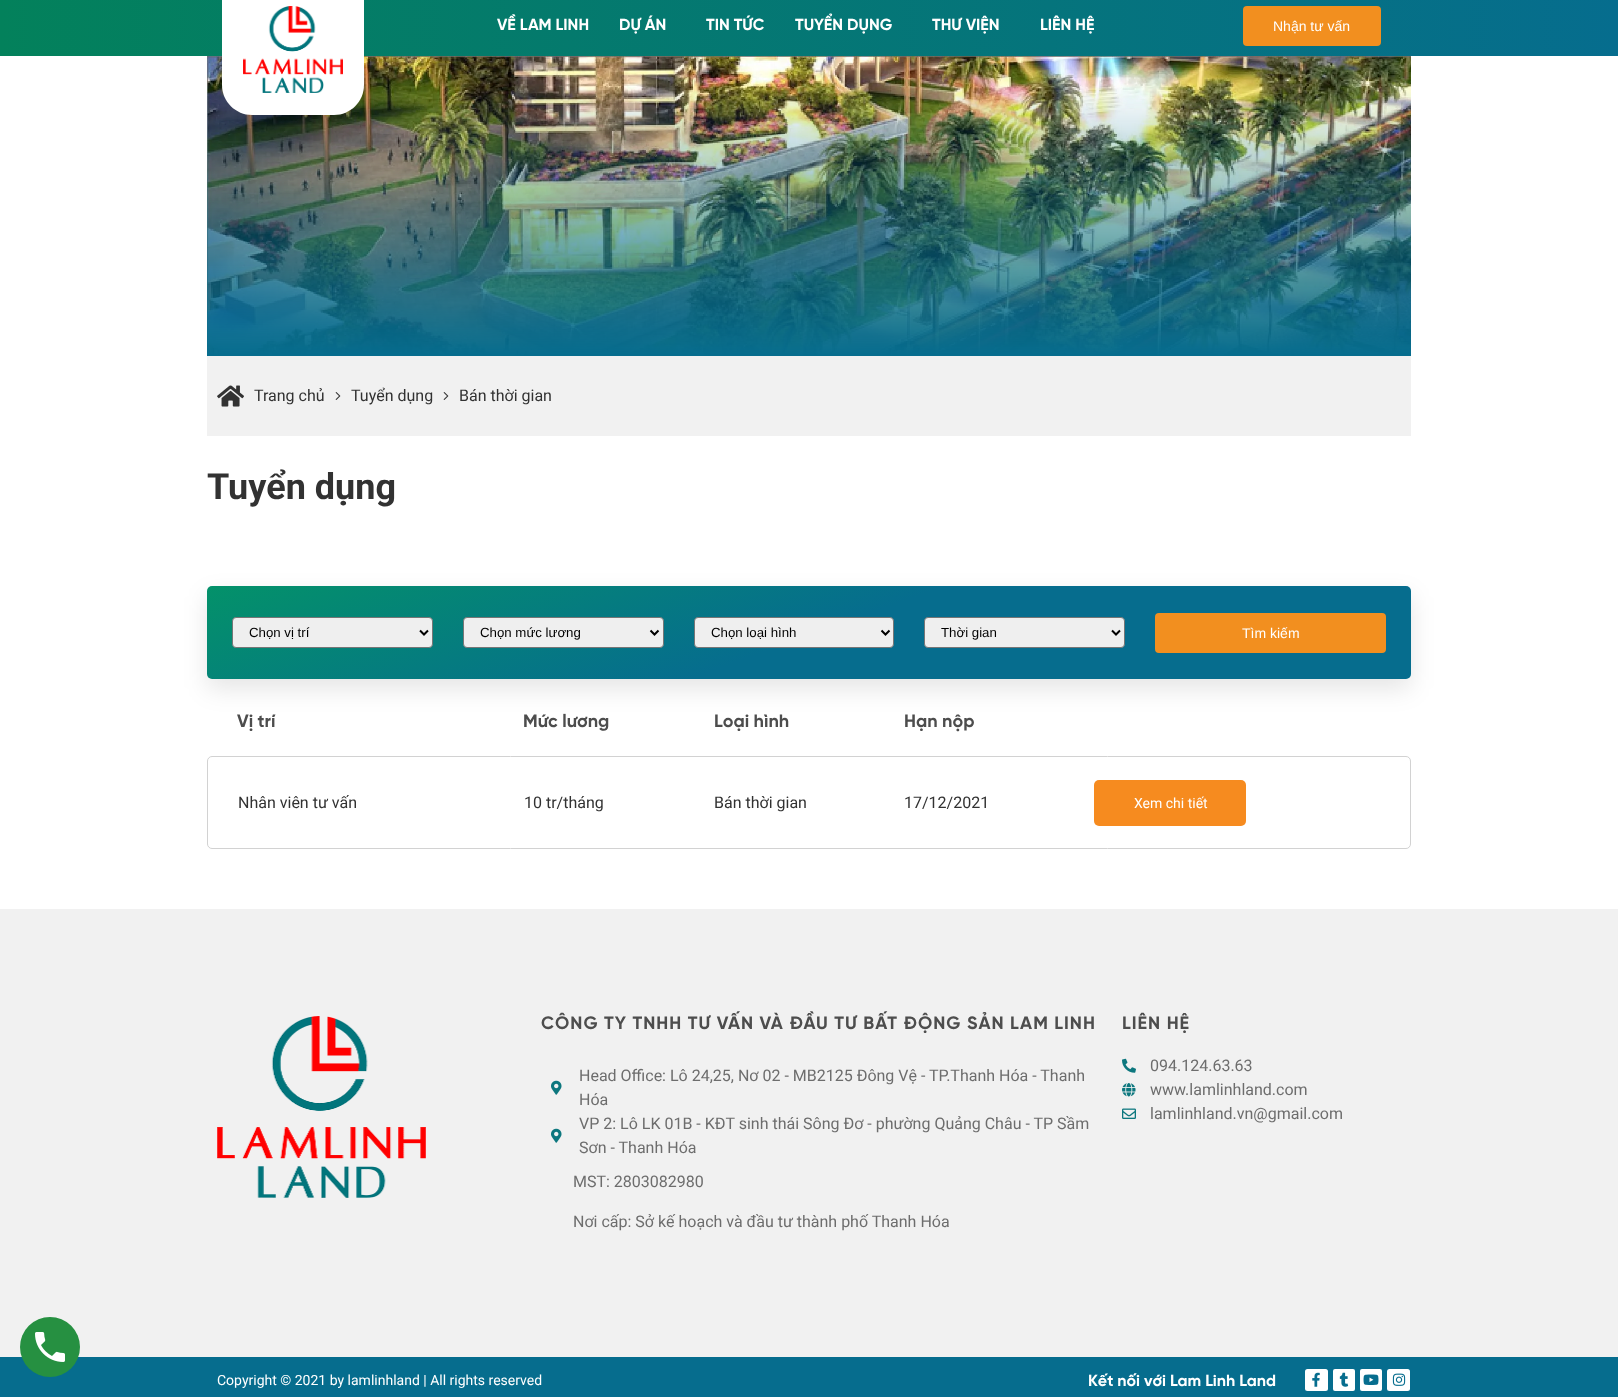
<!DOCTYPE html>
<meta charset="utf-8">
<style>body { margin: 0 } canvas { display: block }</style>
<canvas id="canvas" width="1618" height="1397"></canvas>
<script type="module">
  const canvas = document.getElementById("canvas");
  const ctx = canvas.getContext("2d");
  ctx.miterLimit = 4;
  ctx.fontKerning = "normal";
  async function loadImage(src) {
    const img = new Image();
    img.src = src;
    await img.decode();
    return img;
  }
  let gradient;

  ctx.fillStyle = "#ffffff";
  ctx.fillRect(0, 0, 1618, 1397);
  ctx.fillStyle = "#f1f1f1";
  ctx.fillRect(0, 909, 1618, 448);
  ctx.fillStyle = "#066d8e";
  ctx.fillRect(0, 1357, 1618, 40);
  ctx.fillStyle = "#269041";
  ctx.beginPath();
  ctx.arc(50, 1347, 30, 0, Math.PI * 2);
  ctx.fill();
  ctx.drawImage(await loadImage("img1.png"), 35, 1332, 30, 30);
  gradient = ctx.createLinearGradient(0, 26, 1618, 26);
  gradient.addColorStop(0, "#03815b");
  gradient.addColorStop(1, "#066d8e");
  ctx.fillStyle = gradient;
  ctx.fillRect(0, 0, 1618, 56);
  ctx.drawImage(await loadImage("img3.png"), 207, 56, 1204, 300);
  ctx.fillStyle = "#ffffff";
  ctx.beginPath();
  ctx.moveTo(222, -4);
  ctx.lineTo(364, -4);
  ctx.lineTo(364, 85);
  ctx.bezierCurveTo(364, 101.5, 350.5, 115, 334, 115);
  ctx.lineTo(252, 115);
  ctx.bezierCurveTo(235.5, 115, 222, 101.5, 222, 85);
  ctx.closePath();
  ctx.fill();
  ctx.drawImage(await loadImage("img2.png"), 243, 6, 100, 87);
  ctx.font = "bold 16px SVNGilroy";
  ctx.fillText("VỀ LAM LINH", 497, 30);
  ctx.fillText("DỰ ÁN", 619, 30);
  ctx.fillText("TIN TỨC", 706, 30);
  ctx.fillText("TUYỂN DỤNG", 795, 30);
  ctx.fillText("THƯ VIỆN", 932, 30);
  ctx.fillText("LIÊN HỆ", 1040, 30);
  ctx.fillStyle = "#f28f1f";
  ctx.beginPath();
  ctx.roundRect(1243, 6, 138, 40, 4);
  ctx.fill();
  ctx.font = "14px Liberation Sans";
  ctx.fillStyle = "#ffffff";
  ctx.fillText("Nhận tư vấn", 1273, 31);
  ctx.fillStyle = "#f1f1f1";
  ctx.fillRect(207, 356, 1204, 80);
  ctx.drawImage(await loadImage("img4.png"), 217, 385, 27, 22);
  ctx.font = "16px Roboto";
  ctx.fillStyle = "#323232";
  ctx.fillText("Trang chủ", 254, 401);
  ctx.drawImage(await loadImage("img5.png"), 335, 392, 6, 8);
  ctx.fillText("Tuyển dụng", 351, 401);
  ctx.drawImage(await loadImage("img5.png"), 443, 392, 6, 8);
  ctx.fillText("Bán thời gian", 459, 401);
  ctx.font = "bold 36px Roboto";
  ctx.fillText("Tuyển dụng", 207, 499);
  ctx.fillStyle = "rgba(0, 0, 0, 0.1)";
  ctx.filter = "blur(12px)";
  ctx.beginPath();
  ctx.roundRect(207, 596, 1204, 93, 5);
  ctx.fill();
  ctx.filter = "none";
  gradient = ctx.createLinearGradient(672, 257, 894, 867);
  gradient.addColorStop(0, "#02a754");
  gradient.addColorStop(0.62, "#066d8e");
  ctx.fillStyle = gradient;
  ctx.beginPath();
  ctx.roundRect(207, 586, 1204, 93, 5);
  ctx.fill();
  ctx.fillStyle = "#efefef";
  ctx.beginPath();
  ctx.roundRect(232.5, 617.5, 200, 30, 3.5);
  ctx.fill();
  ctx.strokeStyle = "#767676";
  ctx.stroke();
  ctx.beginPath();
  ctx.moveTo(420, 630.5);
  ctx.lineTo(424, 634.5);
  ctx.lineTo(428, 630.5);
  ctx.strokeStyle = "#000000";
  ctx.lineWidth = 2;
  ctx.stroke();
  ctx.font = "13.25px Liberation Sans";
  ctx.fillStyle = "#000000";
  ctx.fillText("Chọn vị trí", 249, 637);
  ctx.fillStyle = "#efefef";
  ctx.beginPath();
  ctx.roundRect(463.5, 617.5, 200, 30, 3.5);
  ctx.fill();
  ctx.strokeStyle = "#767676";
  ctx.lineWidth = 1;
  ctx.stroke();
  ctx.beginPath();
  ctx.moveTo(650.5, 630.5);
  ctx.lineTo(654.5, 634.5);
  ctx.lineTo(658.5, 630.5);
  ctx.strokeStyle = "#000000";
  ctx.lineWidth = 2;
  ctx.stroke();
  ctx.fillStyle = "#000000";
  ctx.fillText("Chọn mức lương", 480, 637);
  ctx.fillStyle = "#efefef";
  ctx.beginPath();
  ctx.roundRect(694.5, 617.5, 199, 30, 3.5);
  ctx.fill();
  ctx.strokeStyle = "#767676";
  ctx.lineWidth = 1;
  ctx.stroke();
  ctx.beginPath();
  ctx.moveTo(881.5, 630.5);
  ctx.lineTo(885.5, 634.5);
  ctx.lineTo(889.5, 630.5);
  ctx.strokeStyle = "#000000";
  ctx.lineWidth = 2;
  ctx.stroke();
  ctx.fillStyle = "#000000";
  ctx.fillText("Chọn loại hình", 711, 637);
  ctx.fillStyle = "#efefef";
  ctx.beginPath();
  ctx.roundRect(924.5, 617.5, 200, 30, 3.5);
  ctx.fill();
  ctx.strokeStyle = "#767676";
  ctx.lineWidth = 1;
  ctx.stroke();
  ctx.beginPath();
  ctx.moveTo(1112, 630.5);
  ctx.lineTo(1116, 634.5);
  ctx.lineTo(1120, 630.5);
  ctx.strokeStyle = "#000000";
  ctx.lineWidth = 2;
  ctx.stroke();
  ctx.fillStyle = "#000000";
  ctx.fillText("Thời gian", 941, 637);
  ctx.fillStyle = "#f28f1f";
  ctx.beginPath();
  ctx.roundRect(1155, 613, 231, 40, 4);
  ctx.fill();
  ctx.font = "14px Liberation Sans";
  ctx.fillStyle = "#ffffff";
  ctx.fillText("Tìm kiếm", 1242, 638);
  ctx.font = "bold 18px SVNGilroy";
  ctx.fillStyle = "#4d4d4d";
  ctx.fillText("Vị trí", 237, 727);
  ctx.fillText("Mức lương", 523, 727);
  ctx.fillText("Loại hình", 714, 727);
  ctx.fillText("Hạn nộp", 904, 727);
  ctx.beginPath();
  ctx.roundRect(207.5, 756.5, 1203, 92, 4.5);
  ctx.strokeStyle = "#d2d2d2";
  ctx.lineWidth = 1;
  ctx.stroke();
  ctx.font = "16px Roboto";
  ctx.fillStyle = "#323232";
  ctx.fillText("Nhân viên tư vấn", 238, 808);
  ctx.fillText("10 tr/tháng", 524, 808);
  ctx.fillText("Bán thời gian", 714, 808);
  ctx.fillText("17/12/2021", 904, 808);
  ctx.fillStyle = "#f68b1f";
  ctx.beginPath();
  ctx.roundRect(1094, 780, 152, 46, 5);
  ctx.fill();
  ctx.font = "14px Roboto";
  ctx.fillStyle = "#ffffff";
  ctx.fillText("Xem chi tiết", 1134, 808);
  ctx.drawImage(await loadImage("img6.png"), 217, 1016, 209, 182);
  ctx.letterSpacing = "1px";
  ctx.font = "bold 18px SVNGilroy";
  ctx.fillStyle = "#4d4d4d";
  ctx.fillText("CÔNG TY TNHH TƯ VẤN VÀ ĐẦU TƯ BẤT ĐỘNG SẢN LAM LINH", 541, 1029);
  ctx.drawImage(await loadImage("img7.png"), 551, 1080, 11, 15);
  ctx.letterSpacing = "0px";
  ctx.font = "16px Roboto";
  ctx.fillStyle = "#6d6d6d";
  ctx.fillText("Head Office: Lô 24,25, Nơ 02 - MB2125 Đông Vệ - TP.Thanh Hóa - Thanh", 579, 1081);
  ctx.fillText("Hóa", 579, 1105);
  ctx.drawImage(await loadImage("img7.png"), 551, 1128, 11, 15);
  ctx.fillText("VP 2: Lô LK 01B - KĐT sinh thái Sông Đơ - phường Quảng Châu - TP Sầm", 579, 1129);
  ctx.fillText("Sơn - Thanh Hóa", 579, 1153);
  ctx.fillText("MST: 2803082980", 573, 1187);
  ctx.fillText("Nơi cấp: Sở kế hoạch và đầu tư thành phố Thanh Hóa", 573, 1227);
  ctx.letterSpacing = "1px";
  ctx.font = "bold 18px SVNGilroy";
  ctx.fillStyle = "#4d4d4d";
  ctx.fillText("LIÊN HỆ", 1122, 1029);
  ctx.drawImage(await loadImage("img8.png"), 1122, 1058, 14, 15);
  ctx.letterSpacing = "0px";
  ctx.font = "16px Roboto";
  ctx.fillStyle = "#6d6d6d";
  ctx.fillText("094.124.63.63", 1150, 1071);
  ctx.drawImage(await loadImage("img9.png"), 1122, 1083, 14, 14);
  ctx.fillText("www.lamlinhland.com", 1150, 1095);
  ctx.drawImage(await loadImage("img10.png"), 1122, 1108, 14, 11);
  ctx.fillText("lamlinhland.vn@gmail.com", 1150, 1119);
  ctx.font = "14px Roboto";
  ctx.fillStyle = "#ffffff";
  ctx.fillText("Copyright © 2021 by lamlinhland | All rights reserved", 217, 1385);
  ctx.font = "bold 16px SVNGilroy";
  ctx.fillText("Kết nối với Lam Linh Land", 1088, 1386);
  ctx.beginPath();
  ctx.roundRect(1305, 1369, 23, 22, 2.5);
  ctx.fill();
  ctx.drawImage(await loadImage("img11.png"), 1312, 1372, 8, 15);
  ctx.beginPath();
  ctx.roundRect(1333, 1369, 22, 22, 2);
  ctx.fill();
  ctx.drawImage(await loadImage("img12.png"), 1339, 1372, 10, 15);
  ctx.beginPath();
  ctx.roundRect(1360, 1369, 22, 22, 2);
  ctx.fill();
  ctx.drawImage(await loadImage("img13.png"), 1363, 1374, 16, 11);
  ctx.beginPath();
  ctx.roundRect(1387, 1369, 23, 22, 2.5);
  ctx.fill();
  ctx.drawImage(await loadImage("img14.png"), 1392, 1373, 14, 13);
</script>
